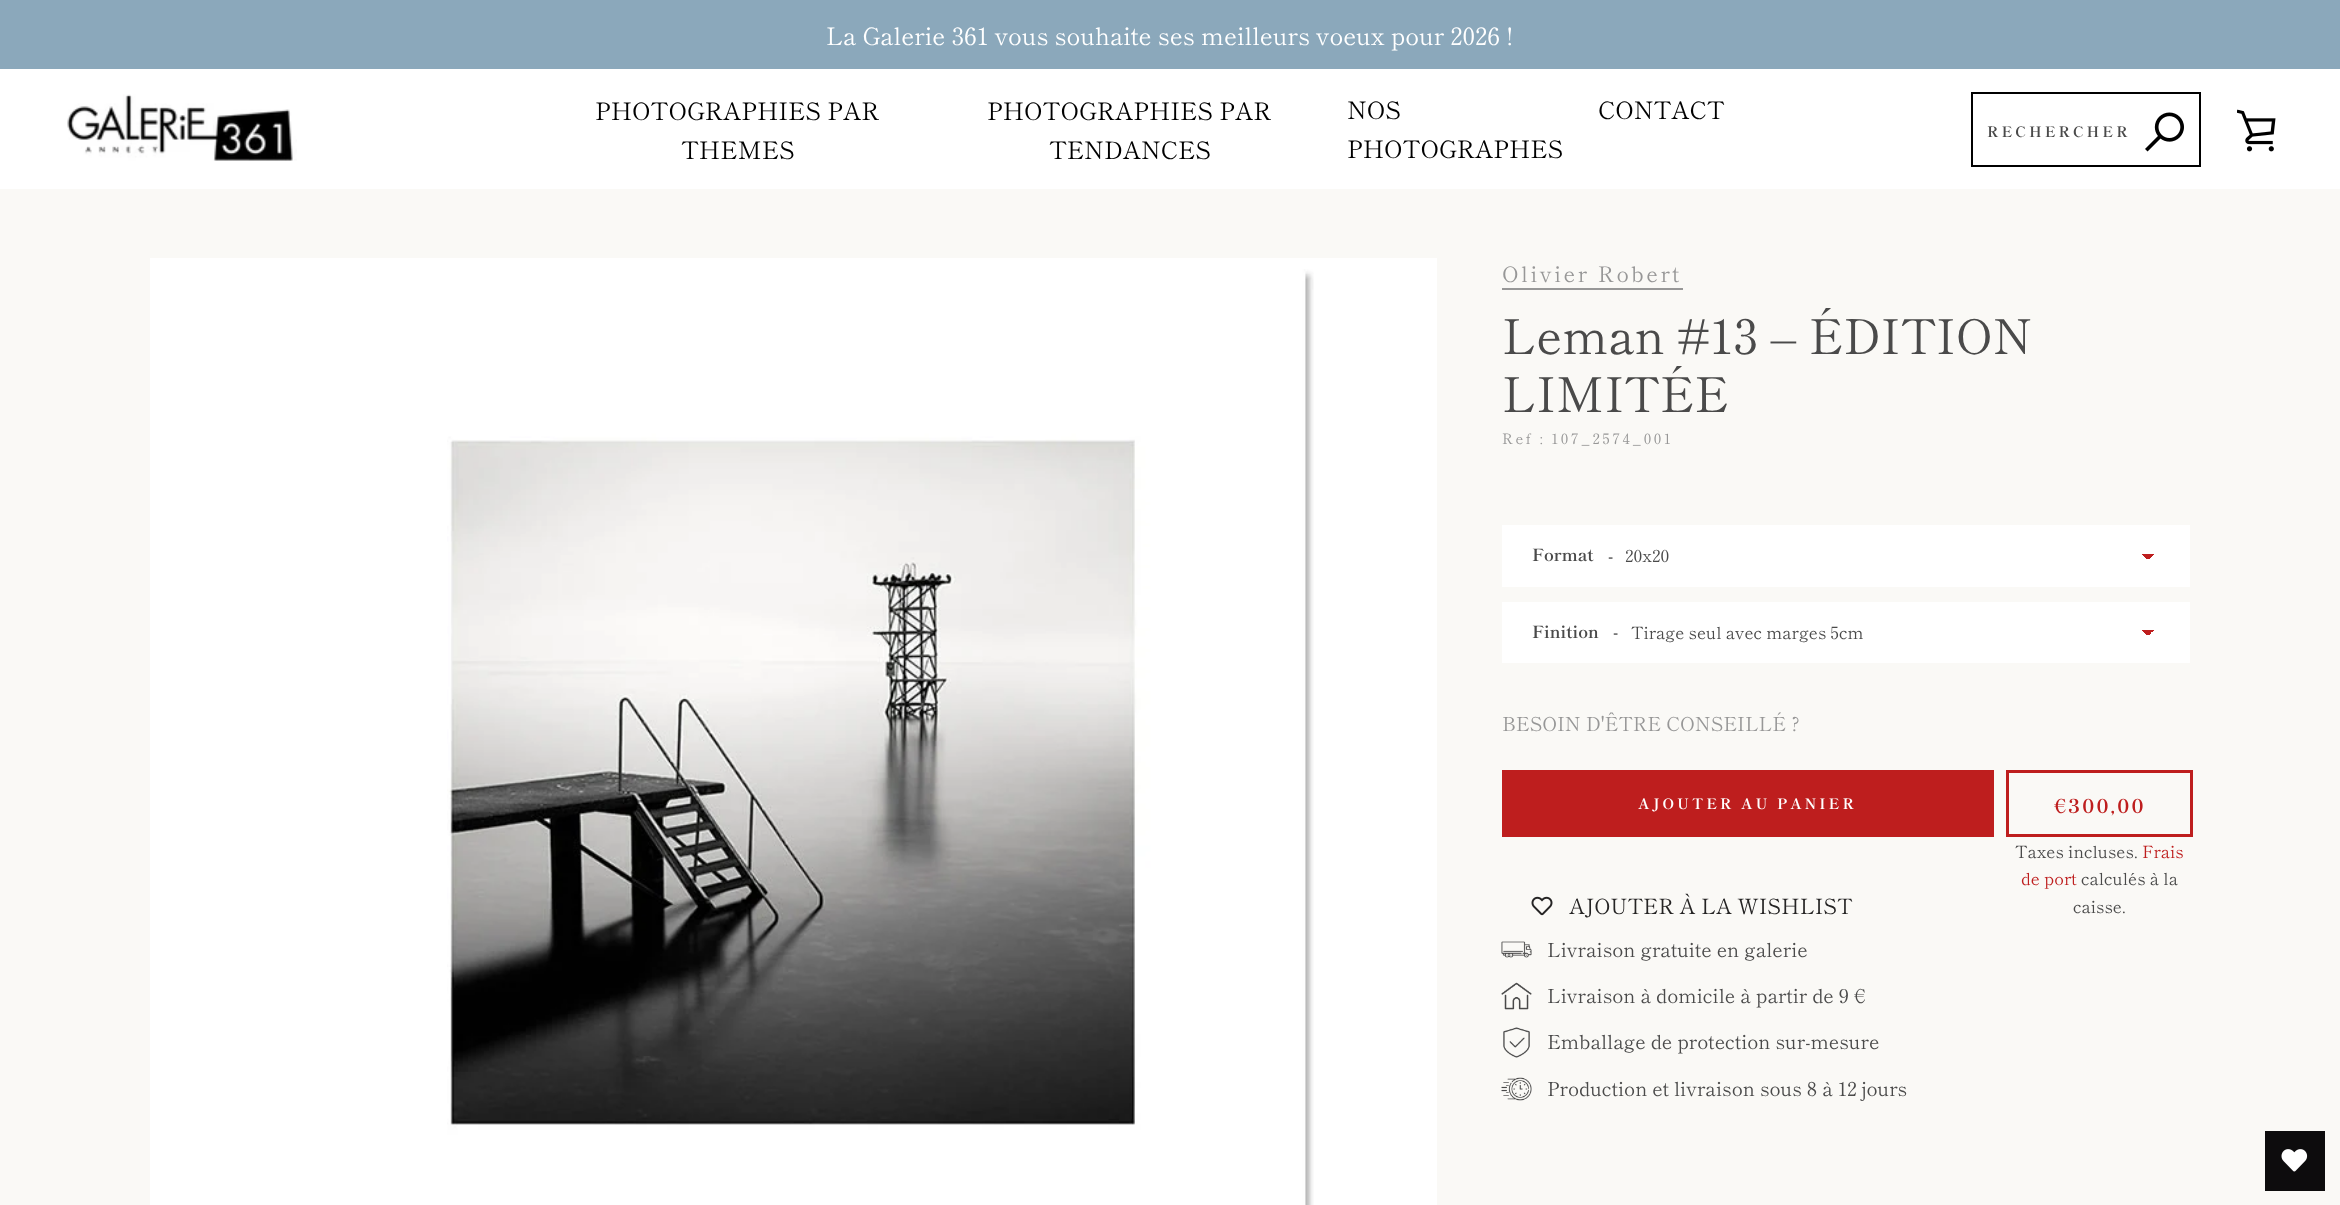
<!DOCTYPE html>
<meta charset="utf-8">
<style>body { margin: 0 } canvas { display: block }</style>
<canvas id="canvas" width="2340" height="1205"></canvas>
<script type="module">
  const canvas = document.getElementById("canvas");
  const ctx = canvas.getContext("2d");
  ctx.miterLimit = 4;
  ctx.fontKerning = "normal";
  async function loadImage(src) {
    const img = new Image();
    img.src = src;
    await img.decode();
    return img;
  }
  let gradient;

  ctx.fillStyle = "#faf9f6";
  ctx.fillRect(0, 0, 2340, 1205);
  ctx.fillStyle = "#8ba8bb";
  ctx.fillRect(0, 0, 2340, 69);
  ctx.font = "24px Shippori Mincho";
  ctx.fillStyle = "#ffffff";
  ctx.fillText("La Galerie 361 vous souhaite ses meilleurs voeux pour 2026 !", 826, 45);
  ctx.fillRect(0, 69, 2340, 120);
  ctx.drawImage(await loadImage("img1.png"), 67, 94, 230, 67);
  ctx.fillStyle = "#000000";
  ctx.fillText("PHOTOGRAPHIES PAR", 595, 120);
  ctx.fillText("THEMES", 681, 159);
  ctx.fillText("PHOTOGRAPHIES PAR", 987, 120);
  ctx.fillText("TENDANCES", 1049, 159);
  ctx.fillText("NOS", 1347, 119);
  ctx.fillText("PHOTOGRAPHES", 1347, 158);
  ctx.fillText("CONTACT", 1598, 119);
  ctx.strokeStyle = "#000000";
  ctx.lineWidth = 2;
  ctx.strokeRect(1972, 93, 228, 73);
  ctx.letterSpacing = "3px";
  ctx.font = "bold 14.4px Shippori Mincho";
  ctx.fillStyle = "#4a4a4a";
  ctx.fillText("RECHERCHER", 1987, 137);
  ctx.drawImage(await loadImage("img2.png"), 2145, 112, 39, 40);
  ctx.drawImage(await loadImage("img3.png"), 2237, 109, 39, 43);
  ctx.fillStyle = "#ffffff";
  ctx.fillRect(150, 258, 1287, 947);
  ctx.drawImage(await loadImage("img4.png"), 447, 269, 867, 936);
  ctx.letterSpacing = "2.5px";
  ctx.font = "21.5px Shippori Mincho";
  ctx.fillStyle = "#979797";
  ctx.fillText("Olivier Robert", 1502, 282);
  ctx.fillRect(1502, 288, 181, 2);
  ctx.letterSpacing = "0px";
  ctx.font = "48px Shippori Mincho";
  ctx.fillStyle = "#4a4a4a";
  ctx.fillText("Leman #13 – ÉDITION", 1502, 354);
  ctx.fillText("LIMITÉE", 1502, 412);
  ctx.letterSpacing = "2.5px";
  ctx.font = "14.4px Shippori Mincho";
  ctx.fillStyle = "#979797";
  ctx.fillText("Ref : 107_2574_001", 1502, 444);
  ctx.fillStyle = "#ffffff";
  ctx.fillRect(1502, 525, 688, 62);
  ctx.letterSpacing = "0px";
  ctx.font = "bold 16.75px Shippori Mincho";
  ctx.fillStyle = "#4a4a4a";
  ctx.fillText("Format", 1532, 561);
  ctx.fillText("-", 1608, 562);
  gradient = ctx.createLinearGradient(2148, 554, 2154, 560);
  gradient.addColorStop(0.5, "#be1e1e");
  gradient.addColorStop(0.5, "#ffffff");
  ctx.fillStyle = gradient;
  ctx.fillRect(2148, 554, 6, 5);
  gradient = ctx.createLinearGradient(2142, 560, 2148, 554);
  gradient.addColorStop(0.5, "#ffffff");
  gradient.addColorStop(0.5, "#be1e1e");
  ctx.fillStyle = gradient;
  ctx.fillRect(2142, 554, 6, 5);
  ctx.font = "16.75px Shippori Mincho";
  ctx.fillStyle = "#4a4a4a";
  ctx.fillText("20x20", 1625, 562);
  ctx.fillStyle = "#ffffff";
  ctx.fillRect(1502, 602, 688, 61);
  ctx.font = "bold 16.75px Shippori Mincho";
  ctx.fillStyle = "#4a4a4a";
  ctx.fillText("Finition", 1532, 638);
  ctx.fillText("-", 1613, 638);
  gradient = ctx.createLinearGradient(2148, 630, 2154, 636);
  gradient.addColorStop(0.5, "#be1e1e");
  gradient.addColorStop(0.5, "#ffffff");
  ctx.fillStyle = gradient;
  ctx.fillRect(2148, 630, 6, 5);
  gradient = ctx.createLinearGradient(2142, 636, 2148, 630);
  gradient.addColorStop(0.5, "#ffffff");
  gradient.addColorStop(0.5, "#be1e1e");
  ctx.fillStyle = gradient;
  ctx.fillRect(2142, 630, 6, 5);
  ctx.font = "16.75px Shippori Mincho";
  ctx.fillStyle = "#4a4a4a";
  ctx.fillText("Tirage seul avec marges 5cm", 1631, 639);
  ctx.font = "19.25px Shippori Mincho";
  ctx.fillStyle = "#979797";
  ctx.fillText("BESOIN D'ÊTRE CONSEILLÉ ?", 1502, 731);
  ctx.fillStyle = "#be1e1e";
  ctx.fillRect(1502, 770, 492, 67);
  ctx.letterSpacing = "3px";
  ctx.font = "bold 14.4px Shippori Mincho";
  ctx.fillStyle = "#ffffff";
  ctx.fillText("AJOUTER AU PANIER", 1638, 809);
  ctx.strokeStyle = "#be1e1e";
  ctx.lineWidth = 3;
  ctx.strokeRect(2007.5, 771.5, 184, 64);
  ctx.letterSpacing = "2.25px";
  ctx.font = "bold 19.25px Shippori Mincho";
  ctx.fillStyle = "#be1e1e";
  ctx.fillText("€300,00", 2054, 813);
  ctx.letterSpacing = "0px";
  ctx.font = "16.75px Shippori Mincho";
  ctx.fillStyle = "#4a4a4a";
  ctx.fillText("Taxes incluses.", 2015, 858);
  ctx.fillStyle = "#be1e1e";
  ctx.fillText("Frais", 2142, 858);
  ctx.fillText("de port", 2021, 885);
  ctx.fillStyle = "#4a4a4a";
  ctx.fillText("calculés à la", 2081, 885);
  ctx.fillText("caisse.", 2073, 913);
  ctx.drawImage(await loadImage("img5.png"), 1531, 896, 22, 20);
  ctx.font = "21px Shippori Mincho";
  ctx.fillStyle = "#252424";
  ctx.fillText("AJOUTER À LA WISHLIST", 1569, 914);
  ctx.drawImage(await loadImage("img6.png"), 1501, 941, 31, 17);
  ctx.font = "19.25px Shippori Mincho";
  ctx.fillStyle = "#4a4a4a";
  ctx.fillText("Livraison gratuite en galerie", 1547, 957);
  ctx.drawImage(await loadImage("img7.png"), 1501, 982, 31, 28);
  ctx.fillText("Livraison à domicile à partir de 9 €", 1547, 1003);
  ctx.drawImage(await loadImage("img8.png"), 1503, 1027, 27, 31);
  ctx.fillText("Emballage de protection sur-mesure", 1547, 1049);
  ctx.drawImage(await loadImage("img9.png"), 1501, 1077, 31, 24);
  ctx.fillText("Production et livraison sous 8 à 12 jours", 1547, 1096);
  ctx.fillStyle = "#0d0c0d";
  ctx.fillRect(2265, 1131, 60, 60);
  ctx.drawImage(await loadImage("img10.png"), 2281, 1149, 27, 23);
</script>
